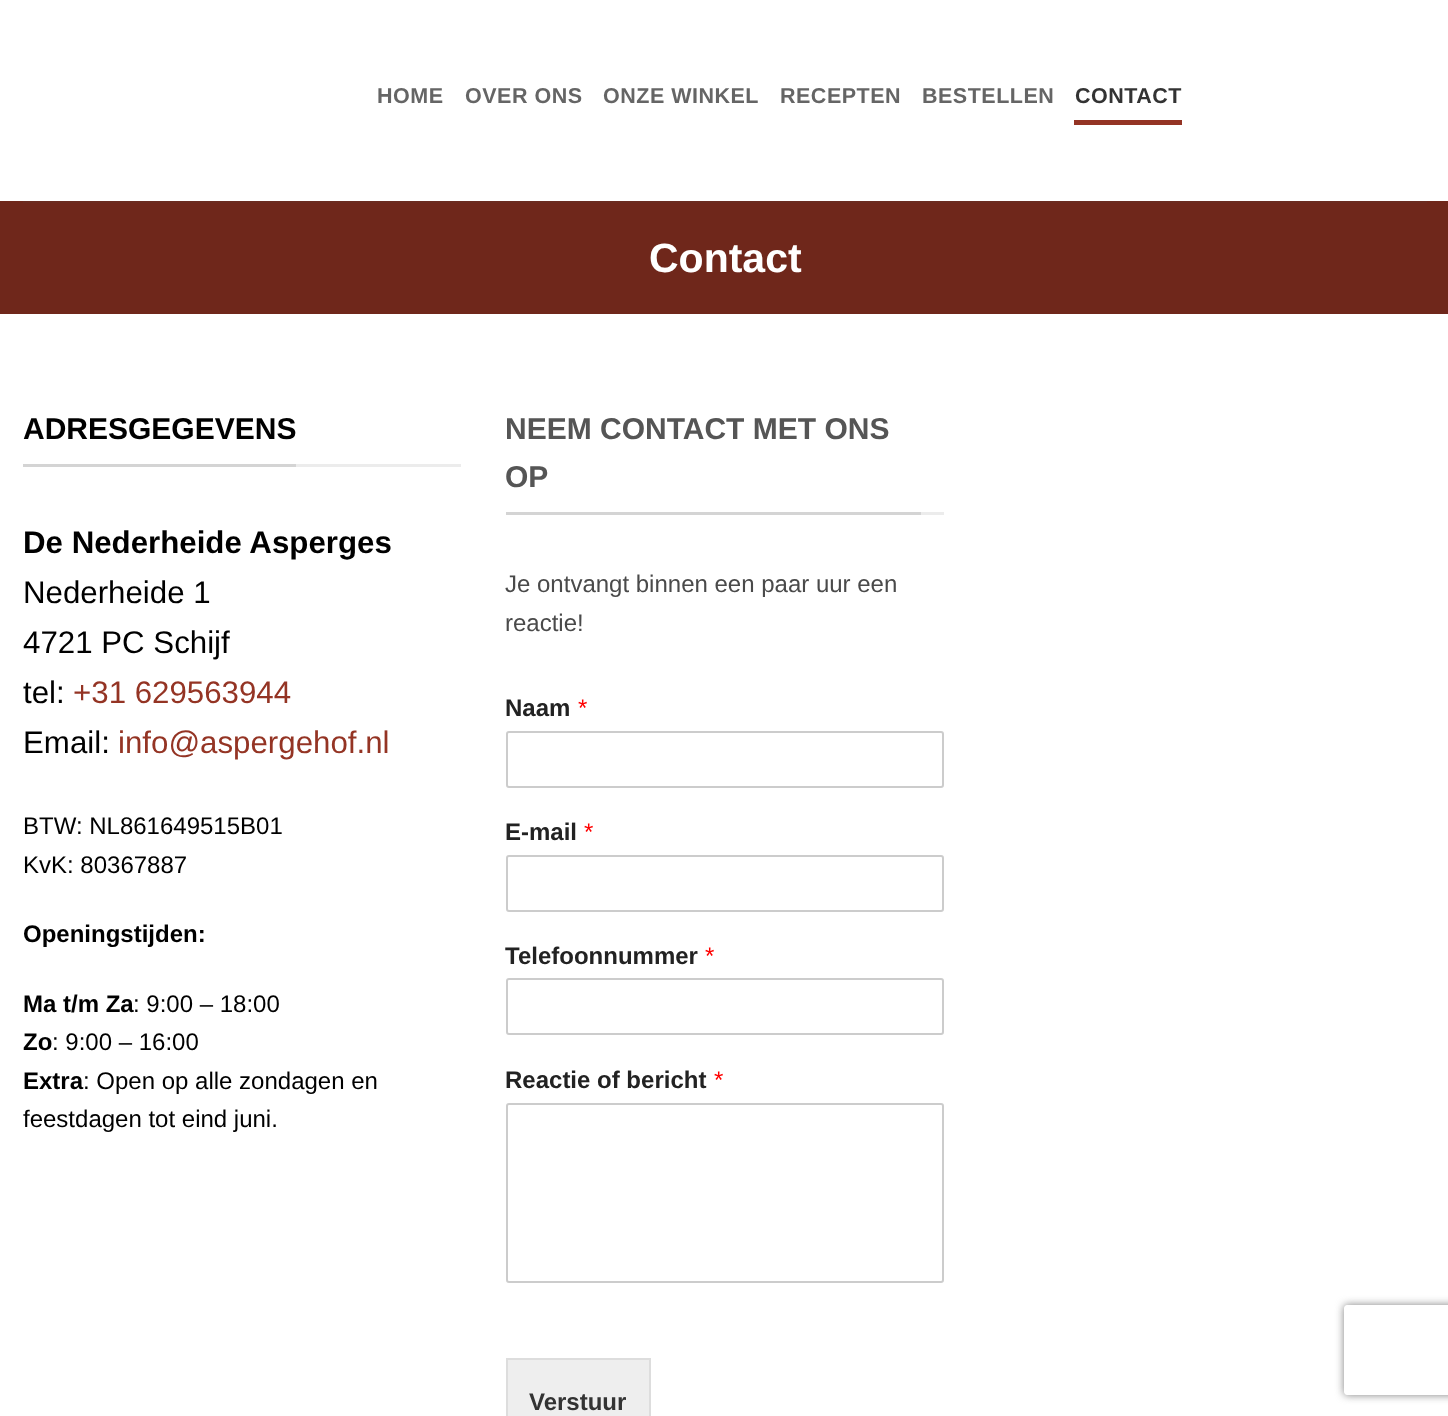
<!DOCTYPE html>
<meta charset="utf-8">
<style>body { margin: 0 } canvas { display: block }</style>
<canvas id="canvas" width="1448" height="1416"></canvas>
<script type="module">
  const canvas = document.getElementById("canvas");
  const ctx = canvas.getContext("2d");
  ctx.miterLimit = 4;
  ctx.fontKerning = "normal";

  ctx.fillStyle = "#ffffff";
  ctx.fillRect(0, 0, 1448, 1416);
  ctx.letterSpacing = "0.5px";
  ctx.font = "bold 21.5px Liberation Sans";
  ctx.fillStyle = "#656565";
  ctx.fillText("HOME", 377, 103);
  ctx.fillText("OVER ONS", 465, 103);
  ctx.fillText("ONZE WINKEL", 603, 103);
  ctx.fillText("RECEPTEN", 780, 103);
  ctx.fillText("BESTELLEN", 922, 103);
  ctx.fillStyle = "#333333";
  ctx.fillText("CONTACT", 1075, 103);
  ctx.fillStyle = "#943424";
  ctx.fillRect(1074, 120, 108, 5);
  ctx.fillStyle = "#6f271b";
  ctx.fillRect(0, 201, 1448, 113);
  ctx.fillStyle = "#6b2b20";
  ctx.fillRect(23, 201, 1404, 2);
  ctx.letterSpacing = "0px";
  ctx.font = "bold 41px Liberation Sans";
  ctx.fillStyle = "#ffffff";
  ctx.fillText("Contact", 649, 272);
  ctx.fillStyle = "#ececec";
  ctx.fillRect(296, 464, 165, 3);
  ctx.fillStyle = "#d4d4d4";
  ctx.fillRect(23, 464, 273, 3);
  ctx.font = "bold 30px Liberation Sans";
  ctx.fillStyle = "#000000";
  ctx.fillText("ADRESGEGEVENS", 23, 439);
  ctx.font = "bold 31.25px Liberation Sans";
  ctx.fillText("De Nederheide Asperges", 23, 553);
  ctx.font = "31.25px Liberation Sans";
  ctx.fillText("Nederheide 1", 23, 603);
  ctx.fillText("4721 PC Schijf", 23, 653);
  ctx.fillText("tel:", 23, 703);
  ctx.fillStyle = "#943424";
  ctx.fillText("+31 629563944", 73, 703);
  ctx.fillStyle = "#000000";
  ctx.fillText("Email:", 23, 753);
  ctx.fillStyle = "#943424";
  ctx.fillText("info@aspergehof.nl", 118, 753);
  ctx.font = "24px Liberation Sans";
  ctx.fillStyle = "#000000";
  ctx.fillText("BTW: NL861649515B01", 23, 834);
  ctx.fillText("KvK: 80367887", 23, 873);
  ctx.font = "bold 24px Liberation Sans";
  ctx.fillText("Openingstijden:", 23, 942);
  ctx.fillText("Ma t/m Za", 23, 1012);
  ctx.font = "24px Liberation Sans";
  ctx.fillText(": 9:00 – 18:00", 133, 1012);
  ctx.font = "bold 24px Liberation Sans";
  ctx.fillText("Zo", 23, 1050);
  ctx.font = "24px Liberation Sans";
  ctx.fillText(": 9:00 – 16:00", 52, 1050);
  ctx.font = "bold 24px Liberation Sans";
  ctx.fillText("Extra", 23, 1089);
  ctx.font = "24px Liberation Sans";
  ctx.fillText(": Open op alle zondagen en", 83, 1089);
  ctx.fillText("feestdagen tot eind juni.", 23, 1127);
  ctx.fillStyle = "#ececec";
  ctx.fillRect(921, 512, 23, 3);
  ctx.fillStyle = "#d4d4d4";
  ctx.fillRect(506, 512, 415, 3);
  ctx.font = "bold 30px Liberation Sans";
  ctx.fillStyle = "#555555";
  ctx.fillText("NEEM CONTACT MET ONS", 505, 439);
  ctx.fillText("OP", 505, 487);
  ctx.font = "24px Liberation Sans";
  ctx.fillStyle = "#4a4a4a";
  ctx.fillText("Je ontvangt binnen een paar uur een", 505, 592);
  ctx.fillText("reactie!", 505, 631);
  ctx.font = "bold 24px Liberation Sans";
  ctx.fillStyle = "#222222";
  ctx.fillText("Naam", 505, 716);
  ctx.font = "24px Liberation Sans";
  ctx.fillStyle = "#ff0000";
  ctx.fillText("*", 578, 716);
  ctx.beginPath();
  ctx.roundRect(507, 732, 436, 55, 2);
  ctx.strokeStyle = "#cccccc";
  ctx.lineWidth = 2;
  ctx.stroke();
  ctx.font = "bold 24px Liberation Sans";
  ctx.fillStyle = "#222222";
  ctx.fillText("E-mail", 505, 840);
  ctx.font = "24px Liberation Sans";
  ctx.fillStyle = "#ff0000";
  ctx.fillText("*", 584, 840);
  ctx.beginPath();
  ctx.roundRect(507, 856, 436, 55, 2);
  ctx.stroke();
  ctx.font = "bold 24px Liberation Sans";
  ctx.fillStyle = "#222222";
  ctx.fillText("Telefoonnummer", 505, 964);
  ctx.font = "24px Liberation Sans";
  ctx.fillStyle = "#ff0000";
  ctx.fillText("*", 705, 964);
  ctx.beginPath();
  ctx.roundRect(507, 979, 436, 55, 2);
  ctx.stroke();
  ctx.font = "bold 24px Liberation Sans";
  ctx.fillStyle = "#222222";
  ctx.fillText("Reactie of bericht", 505, 1088);
  ctx.font = "24px Liberation Sans";
  ctx.fillStyle = "#ff0000";
  ctx.fillText("*", 714, 1088);
  ctx.beginPath();
  ctx.roundRect(507, 1104, 436, 178, 2);
  ctx.stroke();
  ctx.fillStyle = "#eeeeee";
  ctx.beginPath();
  ctx.rect(507, 1359, 143, 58);
  ctx.fill();
  ctx.strokeStyle = "#dddddd";
  ctx.stroke();
  ctx.font = "bold 24px Liberation Sans";
  ctx.fillStyle = "#333333";
  ctx.fillText("Verstuur", 529, 1410);
  ctx.save();
  ctx.beginPath();
  ctx.moveTo(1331, 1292);
  ctx.lineTo(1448, 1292);
  ctx.lineTo(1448, 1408);
  ctx.lineTo(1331, 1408);
  ctx.closePath();
  ctx.moveTo(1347, 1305);
  ctx.lineTo(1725, 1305);
  ctx.bezierCurveTo(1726.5, 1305, 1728, 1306.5, 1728, 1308);
  ctx.lineTo(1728, 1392);
  ctx.bezierCurveTo(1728, 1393.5, 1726.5, 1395, 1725, 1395);
  ctx.lineTo(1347, 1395);
  ctx.bezierCurveTo(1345.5, 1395, 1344, 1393.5, 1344, 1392);
  ctx.lineTo(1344, 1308);
  ctx.bezierCurveTo(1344, 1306.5, 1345.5, 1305, 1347, 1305);
  ctx.closePath();
  ctx.clip("evenodd");
  ctx.fillStyle = "#808080";
  ctx.filter = "blur(4px)";
  ctx.beginPath();
  ctx.roundRect(1344, 1305, 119, 90, 3);
  ctx.fill();
  ctx.filter = "none";
  ctx.restore();
</script>
